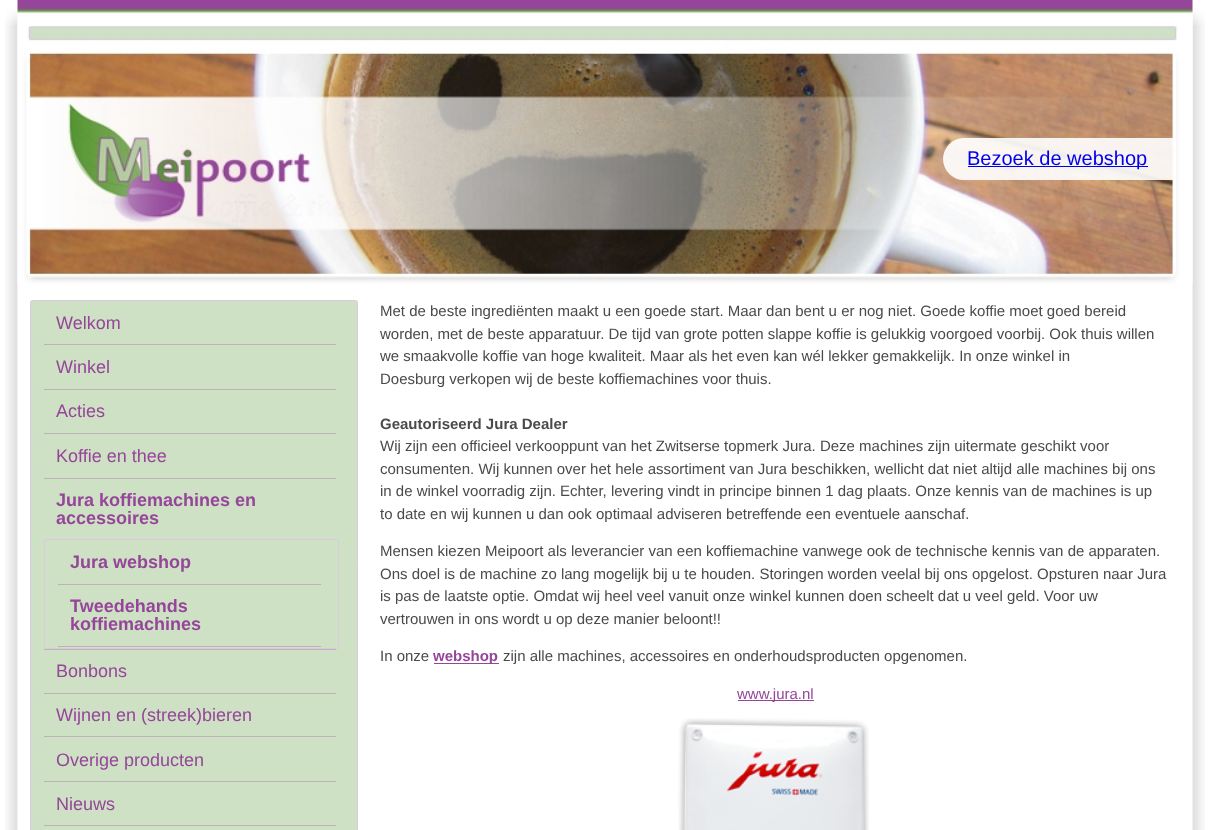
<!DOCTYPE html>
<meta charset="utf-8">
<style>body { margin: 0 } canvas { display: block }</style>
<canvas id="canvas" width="1209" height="830"></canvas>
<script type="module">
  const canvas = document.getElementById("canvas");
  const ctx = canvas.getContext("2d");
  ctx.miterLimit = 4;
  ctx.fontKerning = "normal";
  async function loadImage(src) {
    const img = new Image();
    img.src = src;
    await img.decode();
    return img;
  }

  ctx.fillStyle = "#ffffff";
  ctx.fillRect(0, 0, 1209, 830);
  ctx.drawImage(await loadImage("img1.png"), 5, 25, 1200, 805);
  ctx.drawImage(await loadImage("img2.png"), 5, 0, 1200, 25);
  ctx.drawImage(await loadImage("img3.png"), 17, 0, 1176, 285);
  ctx.fillStyle = "rgba(255, 255, 255, 0.9)";
  ctx.beginPath();
  ctx.roundRect(943, 138, 230, 42, [21, 0, 0, 21]);
  ctx.fill();
  ctx.fillStyle = "#0000ee";
  ctx.fillRect(968, 166, 180, 1);
  ctx.font = "20px Liberation Sans";
  ctx.fillText("Bezoek de webshop", 967, 165);
  ctx.fillStyle = "#cfe1c4";
  ctx.beginPath();
  ctx.roundRect(30.5, 300.5, 327, 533, 2);
  ctx.fill();
  ctx.strokeStyle = "#dfc7e1";
  ctx.stroke();
  ctx.fillStyle = "#bdb2b7";
  ctx.fillRect(44, 344, 292, 1);
  ctx.font = "18px Liberation Sans";
  ctx.fillStyle = "#95459a";
  ctx.fillText("Welkom", 56, 329);
  ctx.fillStyle = "#bdb2b7";
  ctx.fillRect(44, 389, 292, 1);
  ctx.fillStyle = "#95459a";
  ctx.fillText("Winkel", 56, 373);
  ctx.fillStyle = "#bdb2b7";
  ctx.fillRect(44, 433, 292, 1);
  ctx.fillStyle = "#95459a";
  ctx.fillText("Acties", 56, 417);
  ctx.fillStyle = "#bdb2b7";
  ctx.fillRect(44, 478, 292, 1);
  ctx.fillStyle = "#95459a";
  ctx.fillText("Koffie en thee", 56, 462);
  ctx.fillStyle = "#bdb2b7";
  ctx.fillRect(44, 649, 292, 1);
  ctx.font = "bold 18px Liberation Sans";
  ctx.fillStyle = "#95459a";
  ctx.fillText("Jura koffiemachines en", 56, 506);
  ctx.fillText("accessoires", 56, 524);
  ctx.beginPath();
  ctx.roundRect(44.5, 539.5, 294, 109, 2);
  ctx.stroke();
  ctx.fillStyle = "#bdb2b7";
  ctx.fillRect(58, 584, 263, 1);
  ctx.fillStyle = "#95459a";
  ctx.fillText("Jura webshop", 70, 568);
  ctx.fillStyle = "#bdb2b7";
  ctx.fillRect(58, 646, 263, 1);
  ctx.fillStyle = "#95459a";
  ctx.fillText("Tweedehands", 70, 612);
  ctx.fillText("koffiemachines", 70, 630);
  ctx.fillStyle = "#bdb2b7";
  ctx.fillRect(44, 693, 292, 1);
  ctx.font = "18px Liberation Sans";
  ctx.fillStyle = "#95459a";
  ctx.fillText("Bonbons", 56, 677);
  ctx.fillStyle = "#bdb2b7";
  ctx.fillRect(44, 736, 292, 1);
  ctx.fillStyle = "#95459a";
  ctx.fillText("Wijnen en (streek)bieren", 56, 721);
  ctx.fillStyle = "#bdb2b7";
  ctx.fillRect(44, 781, 292, 1);
  ctx.fillStyle = "#95459a";
  ctx.fillText("Overige producten", 56, 766);
  ctx.fillStyle = "#bdb2b7";
  ctx.fillRect(44, 825, 292, 1);
  ctx.fillStyle = "#95459a";
  ctx.fillText("Nieuws", 56, 810);
  ctx.font = "15px Liberation Sans";
  ctx.fillStyle = "#4a4a4a";
  ctx.fillText("Met de beste ingrediënten maakt u een goede start. Maar dan bent u er nog niet. Goede koffie moet goed bereid", 380, 316);
  ctx.fillText("worden, met de beste apparatuur. De tijd van grote potten slappe koffie is gelukkig voorgoed voorbij. Ook thuis willen", 380, 339);
  ctx.fillText("we smaakvolle koffie van hoge kwaliteit. Maar als het even kan wél lekker gemakkelijk. In onze winkel in", 380, 361);
  ctx.fillText("Doesburg verkopen wij de beste koffiemachines voor thuis.", 380, 384);
  ctx.font = "bold 15px Liberation Sans";
  ctx.fillText("Geautoriseerd Jura Dealer", 380, 429);
  ctx.font = "15px Liberation Sans";
  ctx.fillText("Wij zijn een officieel verkooppunt van het Zwitserse topmerk Jura. Deze machines zijn uitermate geschikt voor", 380, 451);
  ctx.fillText("consumenten. Wij kunnen over het hele assortiment van Jura beschikken, wellicht dat niet altijd alle machines bij ons", 380, 474);
  ctx.fillText("in de winkel voorradig zijn. Echter, levering vindt in principe binnen 1 dag plaats. Onze kennis van de machines is up", 380, 496);
  ctx.fillText("to date en wij kunnen u dan ook optimaal adviseren betreffende een eventuele aanschaf.", 380, 519);
  ctx.fillText("Mensen kiezen Meipoort als leverancier van een koffiemachine vanwege ook de technische kennis van de apparaten.", 380, 556);
  ctx.fillText("Ons doel is de machine zo lang mogelijk bij u te houden. Storingen worden veelal bij ons opgelost. Opsturen naar Jura", 380, 579);
  ctx.fillText("is pas de laatste optie. Omdat wij heel veel vanuit onze winkel kunnen doen scheelt dat u veel geld. Voor uw", 380, 601);
  ctx.fillText("vertrouwen in ons wordt u op deze manier beloont!!", 380, 624);
  ctx.fillText("In onze", 380, 661);
  ctx.fillStyle = "#95459a";
  ctx.fillRect(434, 663, 65, 1);
  ctx.font = "bold 15px Liberation Sans";
  ctx.fillText("webshop", 433, 661);
  ctx.font = "15px Liberation Sans";
  ctx.fillStyle = "#4a4a4a";
  ctx.fillText("zijn alle machines, accessoires en onderhoudsproducten opgenomen.", 503, 661);
  ctx.fillStyle = "#95459a";
  ctx.fillRect(738, 700, 76, 1);
  ctx.fillText("www.jura.nl", 737, 699);
  ctx.drawImage(await loadImage("img4.png"), 678, 718, 191, 112);
</script>
